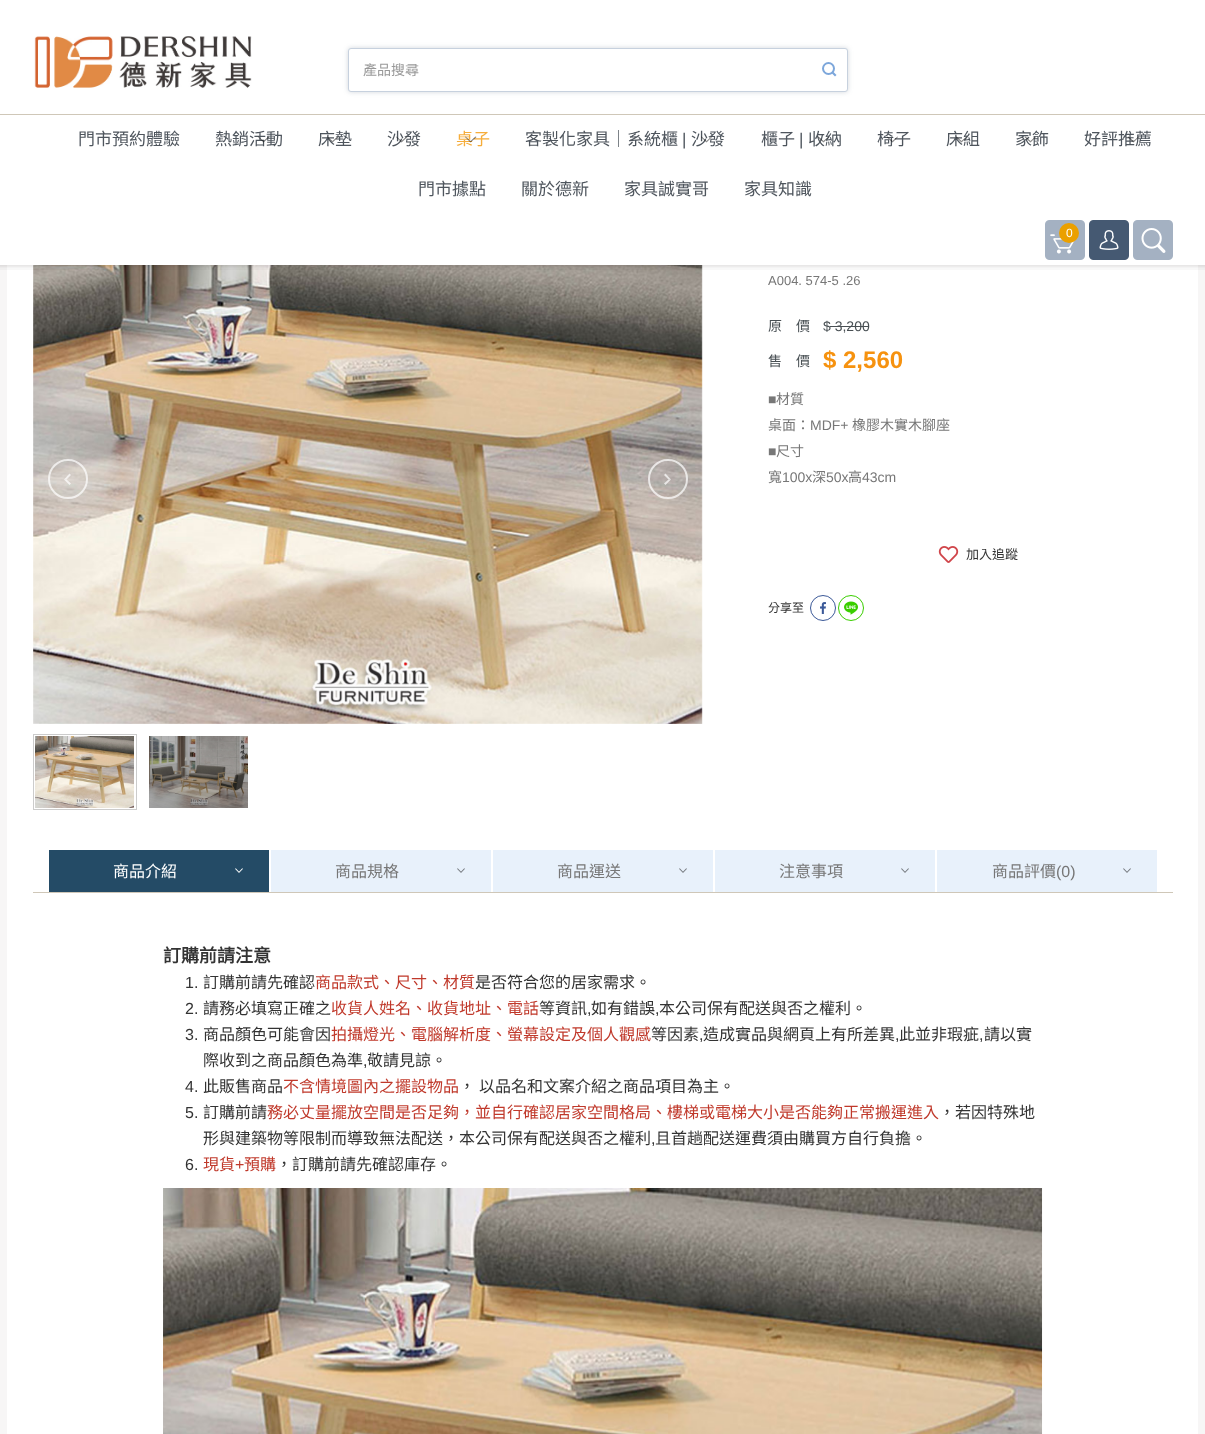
<!DOCTYPE html>
<meta charset="utf-8">
<style>body { margin: 0 } canvas { display: block }</style>
<canvas id="canvas" width="1205" height="1434"></canvas>
<script type="module">
  const canvas = document.getElementById("canvas");
  const ctx = canvas.getContext("2d");
  ctx.miterLimit = 4;
  ctx.fontKerning = "normal";
  async function loadImage(src) {
    const img = new Image();
    img.src = src;
    await img.decode();
    return img;
  }

  ctx.fillStyle = "#ffffff";
  ctx.fillRect(0, 0, 1205, 1434);
  ctx.fillStyle = "#cfc7b8";
  ctx.fillRect(0, 114, 1205, 1);
  ctx.drawImage(await loadImage("img1.png"), 34, 36, 218, 52);
  ctx.fillStyle = "rgba(71, 91, 116, 0.25)";
  ctx.filter = "blur(2.5px)";
  ctx.beginPath();
  ctx.roundRect(348, 48, 500, 44, 3);
  ctx.fill();
  ctx.filter = "none";
  ctx.fillStyle = "#ffffff";
  ctx.beginPath();
  ctx.roundRect(348.5, 48.5, 499, 43, 2.5);
  ctx.fill();
  ctx.strokeStyle = "#c7d1de";
  ctx.stroke();
  ctx.font = "14px Noto Sans CJK TC";
  ctx.fillStyle = "#999999";
  ctx.fillText("產品搜尋", 363, 75);
  ctx.beginPath();
  ctx.arc(828.5, 68.5, 5.5, 0, Math.PI * 2);
  ctx.strokeStyle = "#7da7db";
  ctx.lineWidth = 2;
  ctx.stroke();
  ctx.fillStyle = "#7da7db";
  ctx.beginPath();
  ctx.moveTo(833, 71.5);
  ctx.lineTo(836.5, 75);
  ctx.lineTo(835, 76.5);
  ctx.lineTo(831.5, 73);
  ctx.closePath();
  ctx.fill();
  ctx.font = "17px Noto Sans CJK TC";
  ctx.fillStyle = "#4e555d";
  ctx.fillText("門市預約體驗", 78, 145);
  ctx.fillText("熱銷活動", 215, 145);
  ctx.fillStyle = "rgba(0, 0, 0, 0.5)";
  ctx.beginPath();
  ctx.moveTo(269.5, 137);
  ctx.lineTo(263.5, 142.5);
  ctx.lineTo(263.5, 141);
  ctx.lineTo(268.5, 136.5);
  ctx.closePath();
  ctx.fill();
  ctx.beginPath();
  ctx.moveTo(263.5, 142.5);
  ctx.lineTo(258, 137);
  ctx.lineTo(258.5, 136.5);
  ctx.lineTo(263.5, 141);
  ctx.closePath();
  ctx.fill();
  ctx.fillStyle = "#4e555d";
  ctx.fillText("床墊", 318, 145);
  ctx.fillStyle = "rgba(0, 0, 0, 0.5)";
  ctx.beginPath();
  ctx.moveTo(338.5, 137);
  ctx.lineTo(332.5, 142.5);
  ctx.lineTo(332.5, 141);
  ctx.lineTo(337.5, 136.5);
  ctx.closePath();
  ctx.fill();
  ctx.beginPath();
  ctx.moveTo(332.5, 142.5);
  ctx.lineTo(327, 137);
  ctx.lineTo(327.5, 136.5);
  ctx.lineTo(332.5, 141);
  ctx.closePath();
  ctx.fill();
  ctx.fillStyle = "#4e555d";
  ctx.fillText("沙發", 387, 145);
  ctx.fillStyle = "rgba(0, 0, 0, 0.5)";
  ctx.beginPath();
  ctx.moveTo(407.5, 137);
  ctx.lineTo(401.5, 142.5);
  ctx.lineTo(401.5, 141);
  ctx.lineTo(406.5, 136.5);
  ctx.closePath();
  ctx.fill();
  ctx.beginPath();
  ctx.moveTo(401.5, 142.5);
  ctx.lineTo(396, 137);
  ctx.lineTo(396.5, 136.5);
  ctx.lineTo(401.5, 141);
  ctx.closePath();
  ctx.fill();
  ctx.fillStyle = "#f6ad3a";
  ctx.fillText("桌子", 456, 145);
  ctx.fillStyle = "rgba(0, 0, 0, 0.5)";
  ctx.beginPath();
  ctx.moveTo(476.5, 137);
  ctx.lineTo(470.5, 142.5);
  ctx.lineTo(470.5, 141);
  ctx.lineTo(475.5, 136.5);
  ctx.closePath();
  ctx.fill();
  ctx.beginPath();
  ctx.moveTo(470.5, 142.5);
  ctx.lineTo(465, 137);
  ctx.lineTo(465.5, 136.5);
  ctx.lineTo(470.5, 141);
  ctx.closePath();
  ctx.fill();
  ctx.fillStyle = "#4e555d";
  ctx.fillText("客製化家具｜系統櫃", 525, 145);
  ctx.font = "17px Liberation Sans";
  ctx.fillText("|", 682, 145);
  ctx.font = "17px Noto Sans CJK TC";
  ctx.fillText("沙發", 691, 145);
  ctx.fillStyle = "rgba(0, 0, 0, 0.5)";
  ctx.beginPath();
  ctx.moveTo(712, 137);
  ctx.lineTo(706.5, 142.5);
  ctx.lineTo(706.5, 141);
  ctx.lineTo(711.5, 136.5);
  ctx.closePath();
  ctx.fill();
  ctx.beginPath();
  ctx.moveTo(706.5, 142.5);
  ctx.lineTo(701, 137);
  ctx.lineTo(701.5, 136.5);
  ctx.lineTo(706.5, 141);
  ctx.closePath();
  ctx.fill();
  ctx.fillStyle = "#4e555d";
  ctx.fillText("櫃子", 761, 145);
  ctx.font = "17px Liberation Sans";
  ctx.fillText("|", 799, 145);
  ctx.font = "17px Noto Sans CJK TC";
  ctx.fillText("收納", 808, 145);
  ctx.fillStyle = "rgba(0, 0, 0, 0.5)";
  ctx.beginPath();
  ctx.moveTo(829, 137);
  ctx.lineTo(823.5, 142.5);
  ctx.lineTo(823.5, 141);
  ctx.lineTo(828.5, 136.5);
  ctx.closePath();
  ctx.fill();
  ctx.beginPath();
  ctx.moveTo(823.5, 142.5);
  ctx.lineTo(817.5, 137);
  ctx.lineTo(818.5, 136.5);
  ctx.lineTo(823.5, 141);
  ctx.closePath();
  ctx.fill();
  ctx.fillStyle = "#4e555d";
  ctx.fillText("椅子", 877, 145);
  ctx.fillStyle = "rgba(0, 0, 0, 0.5)";
  ctx.beginPath();
  ctx.moveTo(898, 137);
  ctx.lineTo(892.5, 142.5);
  ctx.lineTo(892.5, 141);
  ctx.lineTo(897.5, 136.5);
  ctx.closePath();
  ctx.fill();
  ctx.beginPath();
  ctx.moveTo(892.5, 142.5);
  ctx.lineTo(886.5, 137);
  ctx.lineTo(887.5, 136.5);
  ctx.lineTo(892.5, 141);
  ctx.closePath();
  ctx.fill();
  ctx.fillStyle = "#4e555d";
  ctx.fillText("床組", 946, 145);
  ctx.fillStyle = "rgba(0, 0, 0, 0.5)";
  ctx.beginPath();
  ctx.moveTo(967, 137);
  ctx.lineTo(961.5, 142.5);
  ctx.lineTo(961.5, 141);
  ctx.lineTo(966.5, 136.5);
  ctx.closePath();
  ctx.fill();
  ctx.beginPath();
  ctx.moveTo(961.5, 142.5);
  ctx.lineTo(955.5, 137);
  ctx.lineTo(956.5, 136.5);
  ctx.lineTo(961.5, 141);
  ctx.closePath();
  ctx.fill();
  ctx.fillStyle = "#4e555d";
  ctx.fillText("家飾", 1015, 145);
  ctx.fillStyle = "rgba(0, 0, 0, 0.5)";
  ctx.beginPath();
  ctx.moveTo(1036, 137);
  ctx.lineTo(1030.5, 142.5);
  ctx.lineTo(1030.5, 141);
  ctx.lineTo(1035.5, 136.5);
  ctx.closePath();
  ctx.fill();
  ctx.beginPath();
  ctx.moveTo(1030.5, 142.5);
  ctx.lineTo(1024.5, 137);
  ctx.lineTo(1025.5, 136.5);
  ctx.lineTo(1030.5, 141);
  ctx.closePath();
  ctx.fill();
  ctx.fillStyle = "#4e555d";
  ctx.fillText("好評推薦", 1084, 145);
  ctx.fillStyle = "rgba(0, 0, 0, 0.5)";
  ctx.beginPath();
  ctx.moveTo(1139, 137);
  ctx.lineTo(1133.5, 142.5);
  ctx.lineTo(1133.5, 141);
  ctx.lineTo(1138.5, 136.5);
  ctx.closePath();
  ctx.fill();
  ctx.beginPath();
  ctx.moveTo(1133.5, 142.5);
  ctx.lineTo(1127.5, 137);
  ctx.lineTo(1128.5, 136.5);
  ctx.lineTo(1133.5, 141);
  ctx.closePath();
  ctx.fill();
  ctx.fillStyle = "#4e555d";
  ctx.fillText("門市據點", 418, 195);
  ctx.fillText("關於德新", 521, 195);
  ctx.fillText("家具誠實哥", 624, 195);
  ctx.fillText("家具知識", 744, 195);
  ctx.drawImage(await loadImage("img2.png"), 1045, 220, 40, 40);
  ctx.fillStyle = "#eba000";
  ctx.beginPath();
  ctx.arc(1069, 233, 10, 0, Math.PI * 2);
  ctx.fill();
  ctx.font = "12px Liberation Sans";
  ctx.fillStyle = "#ffffff";
  ctx.fillText("0", 1066, 237);
  ctx.drawImage(await loadImage("img3.png"), 1089, 220, 40, 40);
  ctx.drawImage(await loadImage("img4.png"), 1133, 220, 40, 40);
  ctx.fillStyle = "#f7f6f6";
  ctx.fillRect(0, 265, 7, 1169);
  ctx.fillRect(1198, 265, 7, 1169);
  ctx.drawImage(await loadImage("img6.png"), 33, 265, 670, 459);
  ctx.drawImage(await loadImage("img5.png"), 0, 265, 1205, 5);
  ctx.beginPath();
  ctx.arc(68, 479, 19, 0, Math.PI * 2);
  ctx.strokeStyle = "rgba(255, 255, 255, 0.7)";
  ctx.stroke();
  ctx.fillStyle = "rgba(255, 255, 255, 0.7)";
  ctx.beginPath();
  ctx.moveTo(69.5, 485);
  ctx.lineTo(64, 479.5);
  ctx.lineTo(66.5, 479.5);
  ctx.lineTo(71, 483.5);
  ctx.closePath();
  ctx.fill();
  ctx.beginPath();
  ctx.moveTo(64, 479.5);
  ctx.lineTo(69.5, 473.5);
  ctx.lineTo(71, 475);
  ctx.lineTo(66.5, 479.5);
  ctx.closePath();
  ctx.fill();
  ctx.beginPath();
  ctx.arc(668, 479, 19, 0, Math.PI * 2);
  ctx.stroke();
  ctx.beginPath();
  ctx.moveTo(665.5, 473.5);
  ctx.lineTo(671, 479.5);
  ctx.lineTo(668.5, 479.5);
  ctx.lineTo(664, 475);
  ctx.closePath();
  ctx.fill();
  ctx.beginPath();
  ctx.moveTo(671, 479.5);
  ctx.lineTo(665.5, 485);
  ctx.lineTo(664, 483.5);
  ctx.lineTo(668.5, 479.5);
  ctx.closePath();
  ctx.fill();
  ctx.strokeStyle = "#cccccc";
  ctx.lineWidth = 1;
  ctx.strokeRect(33.5, 734.5, 103, 75);
  ctx.drawImage(await loadImage("img7.png"), 35, 736, 99, 72);
  ctx.drawImage(await loadImage("img8.png"), 149, 736, 99, 72);
  ctx.font = "13px Liberation Sans";
  ctx.fillStyle = "#777777";
  ctx.fillText("A004. 574-5 .26", 768, 285);
  ctx.font = "14px Noto Sans CJK TC";
  ctx.fillStyle = "#484f53";
  ctx.fillText("原　價", 768, 331);
  ctx.font = "14px Liberation Sans";
  ctx.fillText("$ 3,200", 823, 331);
  ctx.fillRect(830, 326, 39, 1);
  ctx.font = "14px Noto Sans CJK TC";
  ctx.fillText("售　價", 768, 366);
  ctx.font = "bold 24px Liberation Sans";
  ctx.fillStyle = "#f6920f";
  ctx.fillText("$ 2,560", 823, 368);
  ctx.font = "14px Liberation Sans";
  ctx.fillStyle = "#777777";
  ctx.fillText("■", 768, 404);
  ctx.font = "14px Noto Sans CJK TC";
  ctx.fillText("材質", 776, 404);
  ctx.fillText("桌面：", 768, 430);
  ctx.font = "14px Liberation Sans";
  ctx.fillText("MDF+", 810, 430);
  ctx.font = "14px Noto Sans CJK TC";
  ctx.fillText("橡膠木實木腳座", 852, 430);
  ctx.font = "14px Liberation Sans";
  ctx.fillText("■", 768, 456);
  ctx.font = "14px Noto Sans CJK TC";
  ctx.fillText("尺寸", 776, 456);
  ctx.fillText("寬", 768, 482);
  ctx.font = "14px Liberation Sans";
  ctx.fillText("100x", 782, 482);
  ctx.font = "14px Noto Sans CJK TC";
  ctx.fillText("深", 812, 482);
  ctx.font = "14px Liberation Sans";
  ctx.fillText("50x", 826, 482);
  ctx.font = "14px Noto Sans CJK TC";
  ctx.fillText("高", 848, 482);
  ctx.font = "14px Liberation Sans";
  ctx.fillText("43cm", 862, 482);
  ctx.drawImage(await loadImage("img9.png"), 938, 546, 21, 17);
  ctx.font = "13px Noto Sans CJK TC";
  ctx.fillStyle = "#333333";
  ctx.fillText("加入追蹤", 966, 559);
  ctx.font = "12px Noto Sans CJK TC";
  ctx.fillText("分享至", 768, 612);
  ctx.drawImage(await loadImage("img10.png"), 820, 602, 6, 12);
  ctx.beginPath();
  ctx.arc(823, 608, 12.5, 0, Math.PI * 2);
  ctx.strokeStyle = "#3b5998";
  ctx.stroke();
  ctx.drawImage(await loadImage("img11.png"), 844, 601, 14, 14);
  ctx.beginPath();
  ctx.arc(851, 608, 12.5, 0, Math.PI * 2);
  ctx.strokeStyle = "#3ace00";
  ctx.stroke();
  ctx.fillStyle = "#cfc7b8";
  ctx.fillRect(33, 892, 1140, 1);
  ctx.fillStyle = "#244b66";
  ctx.fillRect(49, 850, 220, 42);
  ctx.font = "16px Noto Sans CJK TC";
  ctx.fillStyle = "#ffffff";
  ctx.fillText("商品介紹", 113, 877);
  ctx.drawImage(await loadImage("img12.png"), 235, 868, 8, 5);
  ctx.fillStyle = "#e8f1fb";
  ctx.fillRect(271, 850, 220, 42);
  ctx.fillStyle = "#777777";
  ctx.fillText("商品規格", 335, 877);
  ctx.drawImage(await loadImage("img13.png"), 457, 868, 8, 5);
  ctx.fillStyle = "#e8f1fb";
  ctx.fillRect(493, 850, 220, 42);
  ctx.fillStyle = "#777777";
  ctx.fillText("商品運送", 557, 877);
  ctx.drawImage(await loadImage("img13.png"), 679, 868, 8, 5);
  ctx.fillStyle = "#e8f1fb";
  ctx.fillRect(715, 850, 220, 42);
  ctx.fillStyle = "#777777";
  ctx.fillText("注意事項", 779, 877);
  ctx.drawImage(await loadImage("img13.png"), 901, 868, 8, 5);
  ctx.fillStyle = "#e8f1fb";
  ctx.fillRect(937, 850, 220, 42);
  ctx.fillStyle = "#777777";
  ctx.fillText("商品評價", 992, 877);
  ctx.font = "16px Liberation Sans";
  ctx.fillText("(0)", 1056, 877);
  ctx.drawImage(await loadImage("img13.png"), 1123, 868, 8, 5);
  ctx.font = "bold 18px Noto Sans CJK TC";
  ctx.fillStyle = "#333333";
  ctx.fillText("訂購前請注意", 163, 962);
  ctx.font = "16px Liberation Sans";
  ctx.fillText("1.", 185, 988);
  ctx.font = "16px Noto Sans CJK TC";
  ctx.fillText("訂購前請先確認", 203, 988);
  ctx.fillStyle = "#c0392b";
  ctx.fillText("商品款式、尺寸、材質", 315, 988);
  ctx.fillStyle = "#333333";
  ctx.fillText("是否符合您的居家需求。", 475, 988);
  ctx.font = "16px Liberation Sans";
  ctx.fillText("2.", 185, 1014);
  ctx.font = "16px Noto Sans CJK TC";
  ctx.fillText("請務必填寫正確之", 203, 1014);
  ctx.fillStyle = "#c0392b";
  ctx.fillText("收貨人姓名、收貨地址、電話", 331, 1014);
  ctx.fillStyle = "#333333";
  ctx.fillText("等資訊", 539, 1014);
  ctx.fillText("如有錯誤", 591, 1014);
  ctx.fillText("本公司保有配送與否之權利。", 659, 1014);
  ctx.font = "16px Liberation Sans";
  ctx.fillText(",", 587, 1014);
  ctx.fillText(",", 655, 1014);
  ctx.fillText("3.", 185, 1040);
  ctx.font = "16px Noto Sans CJK TC";
  ctx.fillText("商品顏色可能會因", 203, 1040);
  ctx.fillStyle = "#c0392b";
  ctx.fillText("拍攝燈光、電腦解析度、螢幕設定及個人觀感", 331, 1040);
  ctx.fillStyle = "#333333";
  ctx.fillText("等因素", 651, 1040);
  ctx.font = "16px Liberation Sans";
  ctx.fillText(",", 699, 1040);
  ctx.font = "16px Noto Sans CJK TC";
  ctx.fillText("造成實品與網頁上有所差異", 703, 1040);
  ctx.font = "16px Liberation Sans";
  ctx.fillText(",", 895, 1040);
  ctx.font = "16px Noto Sans CJK TC";
  ctx.fillText("此並非瑕疵", 899, 1040);
  ctx.font = "16px Liberation Sans";
  ctx.fillText(",", 979, 1040);
  ctx.font = "16px Noto Sans CJK TC";
  ctx.fillText("請以實", 984, 1040);
  ctx.fillText("際收到之商品顏色為準", 203, 1066);
  ctx.font = "16px Liberation Sans";
  ctx.fillText(",", 363, 1066);
  ctx.font = "16px Noto Sans CJK TC";
  ctx.fillText("敬請見諒。", 367, 1066);
  ctx.font = "16px Liberation Sans";
  ctx.fillText("4.", 185, 1092);
  ctx.font = "16px Noto Sans CJK TC";
  ctx.fillText("此販售商品", 203, 1092);
  ctx.fillStyle = "#c0392b";
  ctx.fillText("不含情境圖內之擺設物品", 283, 1092);
  ctx.fillStyle = "#333333";
  ctx.fillText("，", 459, 1092);
  ctx.fillText("以品名和文案介紹之商品項目為主。", 479, 1092);
  ctx.font = "16px Liberation Sans";
  ctx.fillText("5.", 185, 1118);
  ctx.font = "16px Noto Sans CJK TC";
  ctx.fillText("訂購前請", 203, 1118);
  ctx.fillStyle = "#c0392b";
  ctx.fillText("務必丈量擺放空間是否足夠，並自行確認居家空間格局、樓梯或電梯大小是否能夠正常搬運進入", 267, 1118);
  ctx.fillStyle = "#333333";
  ctx.fillText("，若因特殊地", 939, 1118);
  ctx.fillText("形與建築物等限制而導致無法配送，本公司保有配送與否之權利", 203, 1144);
  ctx.font = "16px Liberation Sans";
  ctx.fillText(",", 651, 1144);
  ctx.font = "16px Noto Sans CJK TC";
  ctx.fillText("且首趟配送運費須由購買方自行負擔。", 655, 1144);
  ctx.font = "16px Liberation Sans";
  ctx.fillText("6.", 185, 1170);
  ctx.font = "16px Noto Sans CJK TC";
  ctx.fillStyle = "#c0392b";
  ctx.fillText("現貨", 203, 1170);
  ctx.font = "16px Liberation Sans";
  ctx.fillText("+", 235, 1170);
  ctx.font = "16px Noto Sans CJK TC";
  ctx.fillText("預購", 244, 1170);
  ctx.fillStyle = "#333333";
  ctx.fillText("，訂購前請先確認庫存。", 276, 1170);
  ctx.drawImage(await loadImage("img14.png"), 163, 1188, 880, 246);
</script>
